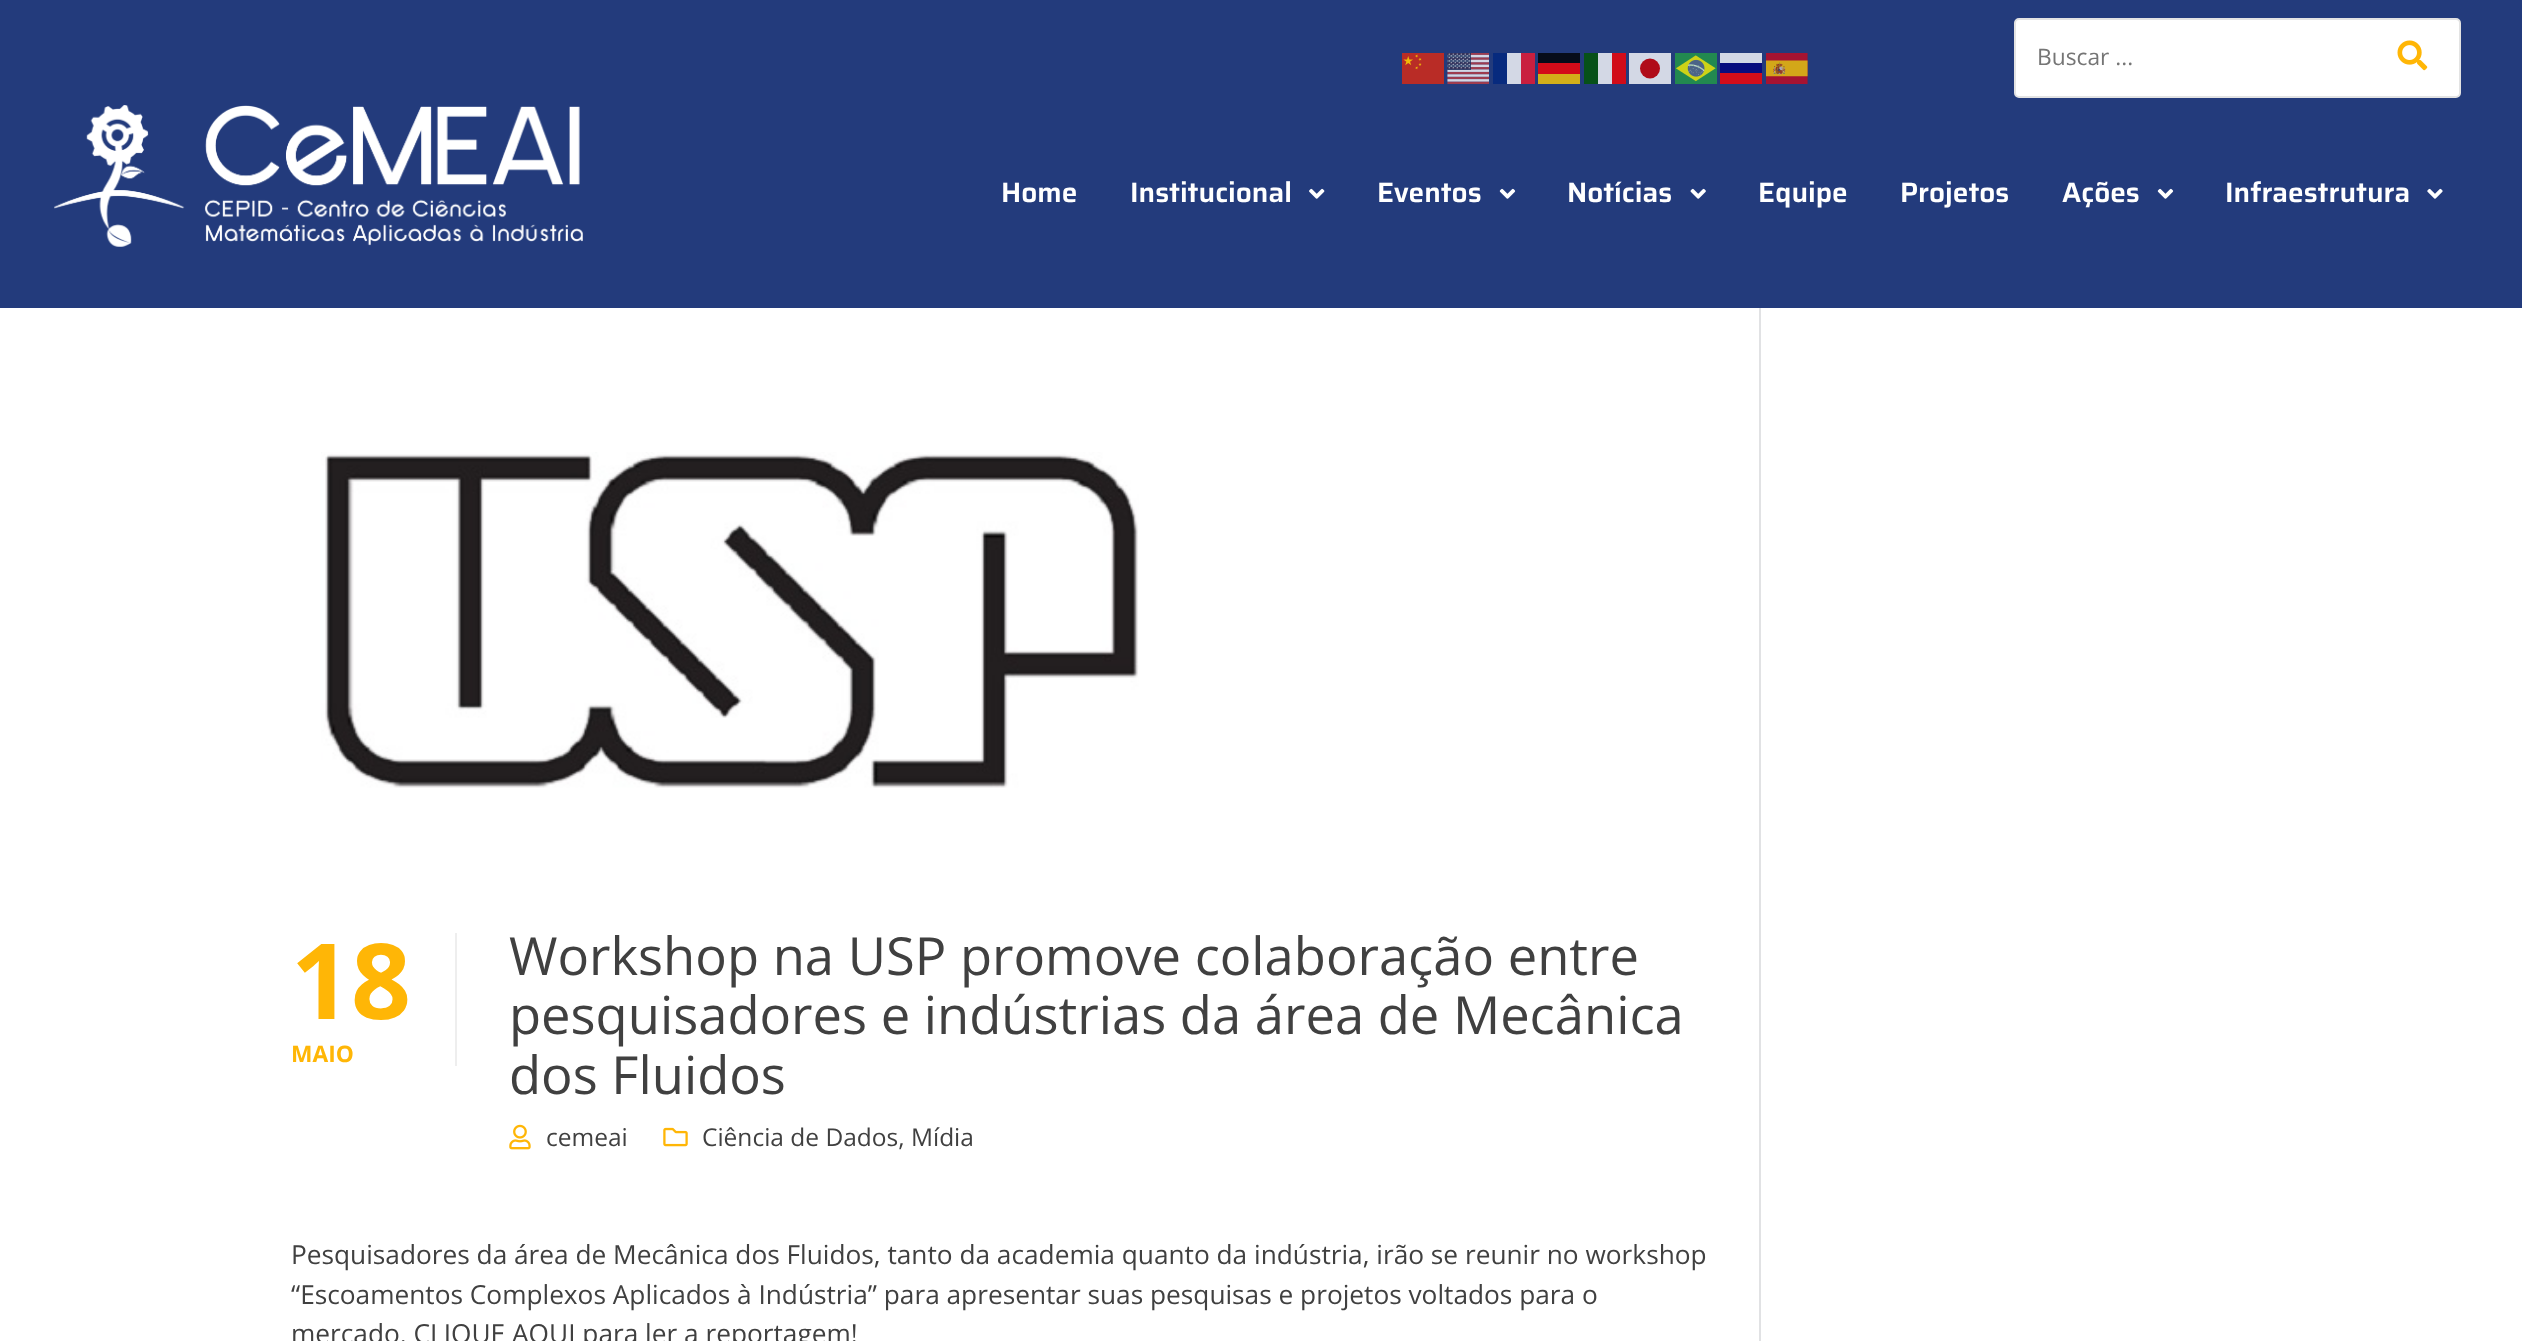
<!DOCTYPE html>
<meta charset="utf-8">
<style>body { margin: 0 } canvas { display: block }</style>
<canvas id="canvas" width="2522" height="1341"></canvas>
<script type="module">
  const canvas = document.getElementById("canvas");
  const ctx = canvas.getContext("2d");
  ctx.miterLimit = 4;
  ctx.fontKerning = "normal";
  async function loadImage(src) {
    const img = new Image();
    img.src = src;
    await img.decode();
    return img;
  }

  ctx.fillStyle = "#ffffff";
  ctx.fillRect(0, 0, 2522, 1341);
  ctx.fillStyle = "#233b7c";
  ctx.fillRect(0, 0, 2522, 308);
  ctx.drawImage(await loadImage("img1.png"), 1402, 53, 42, 31);
  ctx.drawImage(await loadImage("img2.png"), 1447, 53, 42, 31);
  ctx.fillStyle = "#072a7e";
  ctx.fillRect(1493, 53, 14, 31);
  ctx.fillStyle = "#d3d8e5";
  ctx.fillRect(1507, 53, 14, 31);
  ctx.fillStyle = "#c91f3f";
  ctx.fillRect(1521, 53, 14, 31);
  ctx.fillStyle = "#070c19";
  ctx.fillRect(1538, 53, 42, 10);
  ctx.fillStyle = "#075119";
  ctx.fillRect(1584, 53, 14, 31);
  ctx.fillStyle = "#d3d8e5";
  ctx.fillRect(1598, 53, 14, 31);
  ctx.fillStyle = "#d10c19";
  ctx.fillRect(1612, 53, 14, 31);
  ctx.fillStyle = "#d3d8e5";
  ctx.fillRect(1629, 53, 42, 31);
  ctx.drawImage(await loadImage("img3.png"), 1675, 53, 42, 31);
  ctx.fillRect(1720, 53, 42, 10);
  ctx.drawImage(await loadImage("img4.png"), 1766, 53, 42, 31);
  ctx.fillStyle = "#d30c19";
  ctx.fillRect(1538, 63, 42, 11);
  ctx.fillStyle = "#b00c19";
  ctx.beginPath();
  ctx.arc(1650, 68.5, 10, 0, Math.PI * 2);
  ctx.fill();
  ctx.fillStyle = "#080d7e";
  ctx.fillRect(1720, 63, 42, 10);
  ctx.fillStyle = "#d3af19";
  ctx.fillRect(1538, 74, 42, 10);
  ctx.fillStyle = "#d20d1a";
  ctx.fillRect(1720, 73, 42, 11);
  ctx.fillStyle = "#ffffff";
  ctx.beginPath();
  ctx.roundRect(2015, 19, 445, 78, 4);
  ctx.fill();
  ctx.strokeStyle = "#e3e3e3";
  ctx.lineWidth = 2;
  ctx.stroke();
  ctx.font = "22.75px Open Sans";
  ctx.fillStyle = "#757575";
  ctx.fillText("Buscar ...", 2037, 65);
  ctx.drawImage(await loadImage("img5.png"), 2397, 40, 31, 31);
  ctx.drawImage(await loadImage("img6.png"), 54, 105, 529, 142);
  ctx.font = "600 28px Saira";
  ctx.fillStyle = "#ffffff";
  ctx.fillText("Home", 1001, 202);
  ctx.fillText("Institucional", 1130, 202);
  ctx.drawImage(await loadImage("img7.png"), 1309, 188, 16, 11);
  ctx.fillText("Eventos", 1377, 202);
  ctx.drawImage(await loadImage("img8.png"), 1499, 188, 17, 11);
  ctx.fillText("Notícias", 1567, 202);
  ctx.drawImage(await loadImage("img9.png"), 1690, 188, 16, 11);
  ctx.fillText("Equipe", 1758, 202);
  ctx.fillText("Projetos", 1900, 202);
  ctx.fillText("Ações", 2062, 202);
  ctx.drawImage(await loadImage("img8.png"), 2157, 188, 17, 11);
  ctx.fillText("Infraestrutura", 2225, 202);
  ctx.drawImage(await loadImage("img10.png"), 2427, 188, 16, 11);
  ctx.fillStyle = "#e1e2e4";
  ctx.fillRect(1759, 308, 2, 1033);
  ctx.drawImage(await loadImage("img11.png"), 321, 452, 818, 336);
  ctx.font = "bold 105px Open Sans";
  ctx.fillStyle = "#ffb606";
  ctx.fillText("18", 291, 1019);
  ctx.fillStyle = "#eeeeee";
  ctx.fillRect(455, 933, 2, 133);
  ctx.font = "bold 22.75px Open Sans";
  ctx.fillStyle = "#ffb606";
  ctx.fillText("MAIO", 291, 1062);
  ctx.font = "52.5px Open Sans";
  ctx.fillStyle = "#404040";
  ctx.fillText("Workshop na USP promove colaboração entre", 509, 975);
  ctx.fillText("pesquisadores e indústrias da área de Mecânica", 509, 1034);
  ctx.fillText("dos Fluidos", 509, 1094);
  ctx.drawImage(await loadImage("img12.png"), 509, 1124, 22, 26);
  ctx.font = "24.5px Open Sans";
  ctx.fillText("cemeai", 546, 1146);
  ctx.drawImage(await loadImage("img13.png"), 663, 1127, 25, 20);
  ctx.fillText("Ciência de Dados, Mídia", 702, 1146);
  ctx.font = "26.25px Open Sans";
  ctx.fillText("Pesquisadores da área de Mecânica dos Fluidos, tanto da academia quanto da indústria, irão se reunir no workshop", 291, 1264);
  ctx.fillText("“Escoamentos Complexos Aplicados à Indústria” para apresentar suas pesquisas e projetos voltados para o", 291, 1304);
  ctx.fillText("mercado. CLIQUE AQUI para ler a reportagem!", 291, 1343);
</script>
